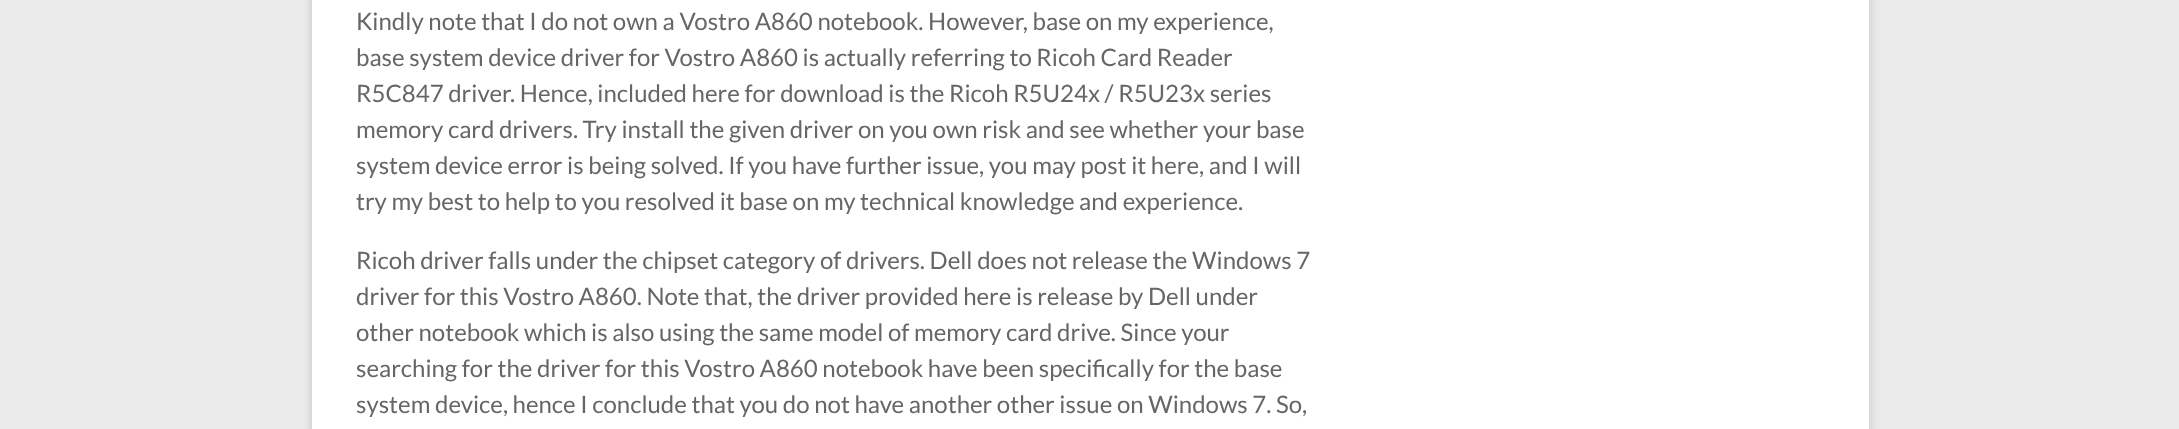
<!DOCTYPE html>
<meta charset="utf-8">
<style>body { margin: 0 } canvas { display: block }</style>
<canvas id="canvas" width="2179" height="429"></canvas>
<script type="module">
  const canvas = document.getElementById("canvas");
  const ctx = canvas.getContext("2d");
  ctx.miterLimit = 4;
  ctx.fontKerning = "normal";

  ctx.fillStyle = "#eaeaea";
  ctx.fillRect(0, 0, 2179, 429);
  ctx.fillStyle = "rgba(100, 100, 100, 0.3)";
  ctx.filter = "blur(4.5px)";
  ctx.beginPath();
  ctx.rect(312, -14, 1557, 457);
  ctx.fill();
  ctx.filter = "none";
  ctx.fillStyle = "#ffffff";
  ctx.fillRect(312, 0, 1557, 429);
  ctx.font = "24px Lato";
  ctx.fillStyle = "#666666";
  ctx.fillText("Kindly note that I do not own a Vostro A860 notebook. However, base on my experience,", 356, 30);
  ctx.fillText("base system device driver for Vostro A860 is actually referring to Ricoh Card Reader", 356, 66);
  ctx.fillText("R5C847 driver. Hence, included here for download is the Ricoh R5U24x / R5U23x series", 356, 102);
  ctx.fillText("memory card drivers. Try install the given driver on you own risk and see whether your base", 356, 138);
  ctx.fillText("system device error is being solved. If you have further issue, you may post it here, and I will", 356, 174);
  ctx.fillText("try my best to help to you resolved it base on my technical knowledge and experience.", 356, 210);
  ctx.fillText("Ricoh driver falls under the chipset category of drivers. Dell does not release the Windows 7", 356, 269);
  ctx.fillText("driver for this Vostro A860. Note that, the driver provided here is release by Dell under", 356, 305);
  ctx.fillText("other notebook which is also using the same model of memory card drive. Since your", 356, 341);
  ctx.fillText("searching for the driver for this Vostro A860 notebook have been specifically for the base", 356, 377);
  ctx.fillText("system device, hence I conclude that you do not have another other issue on Windows 7. So,", 356, 413);
</script>
